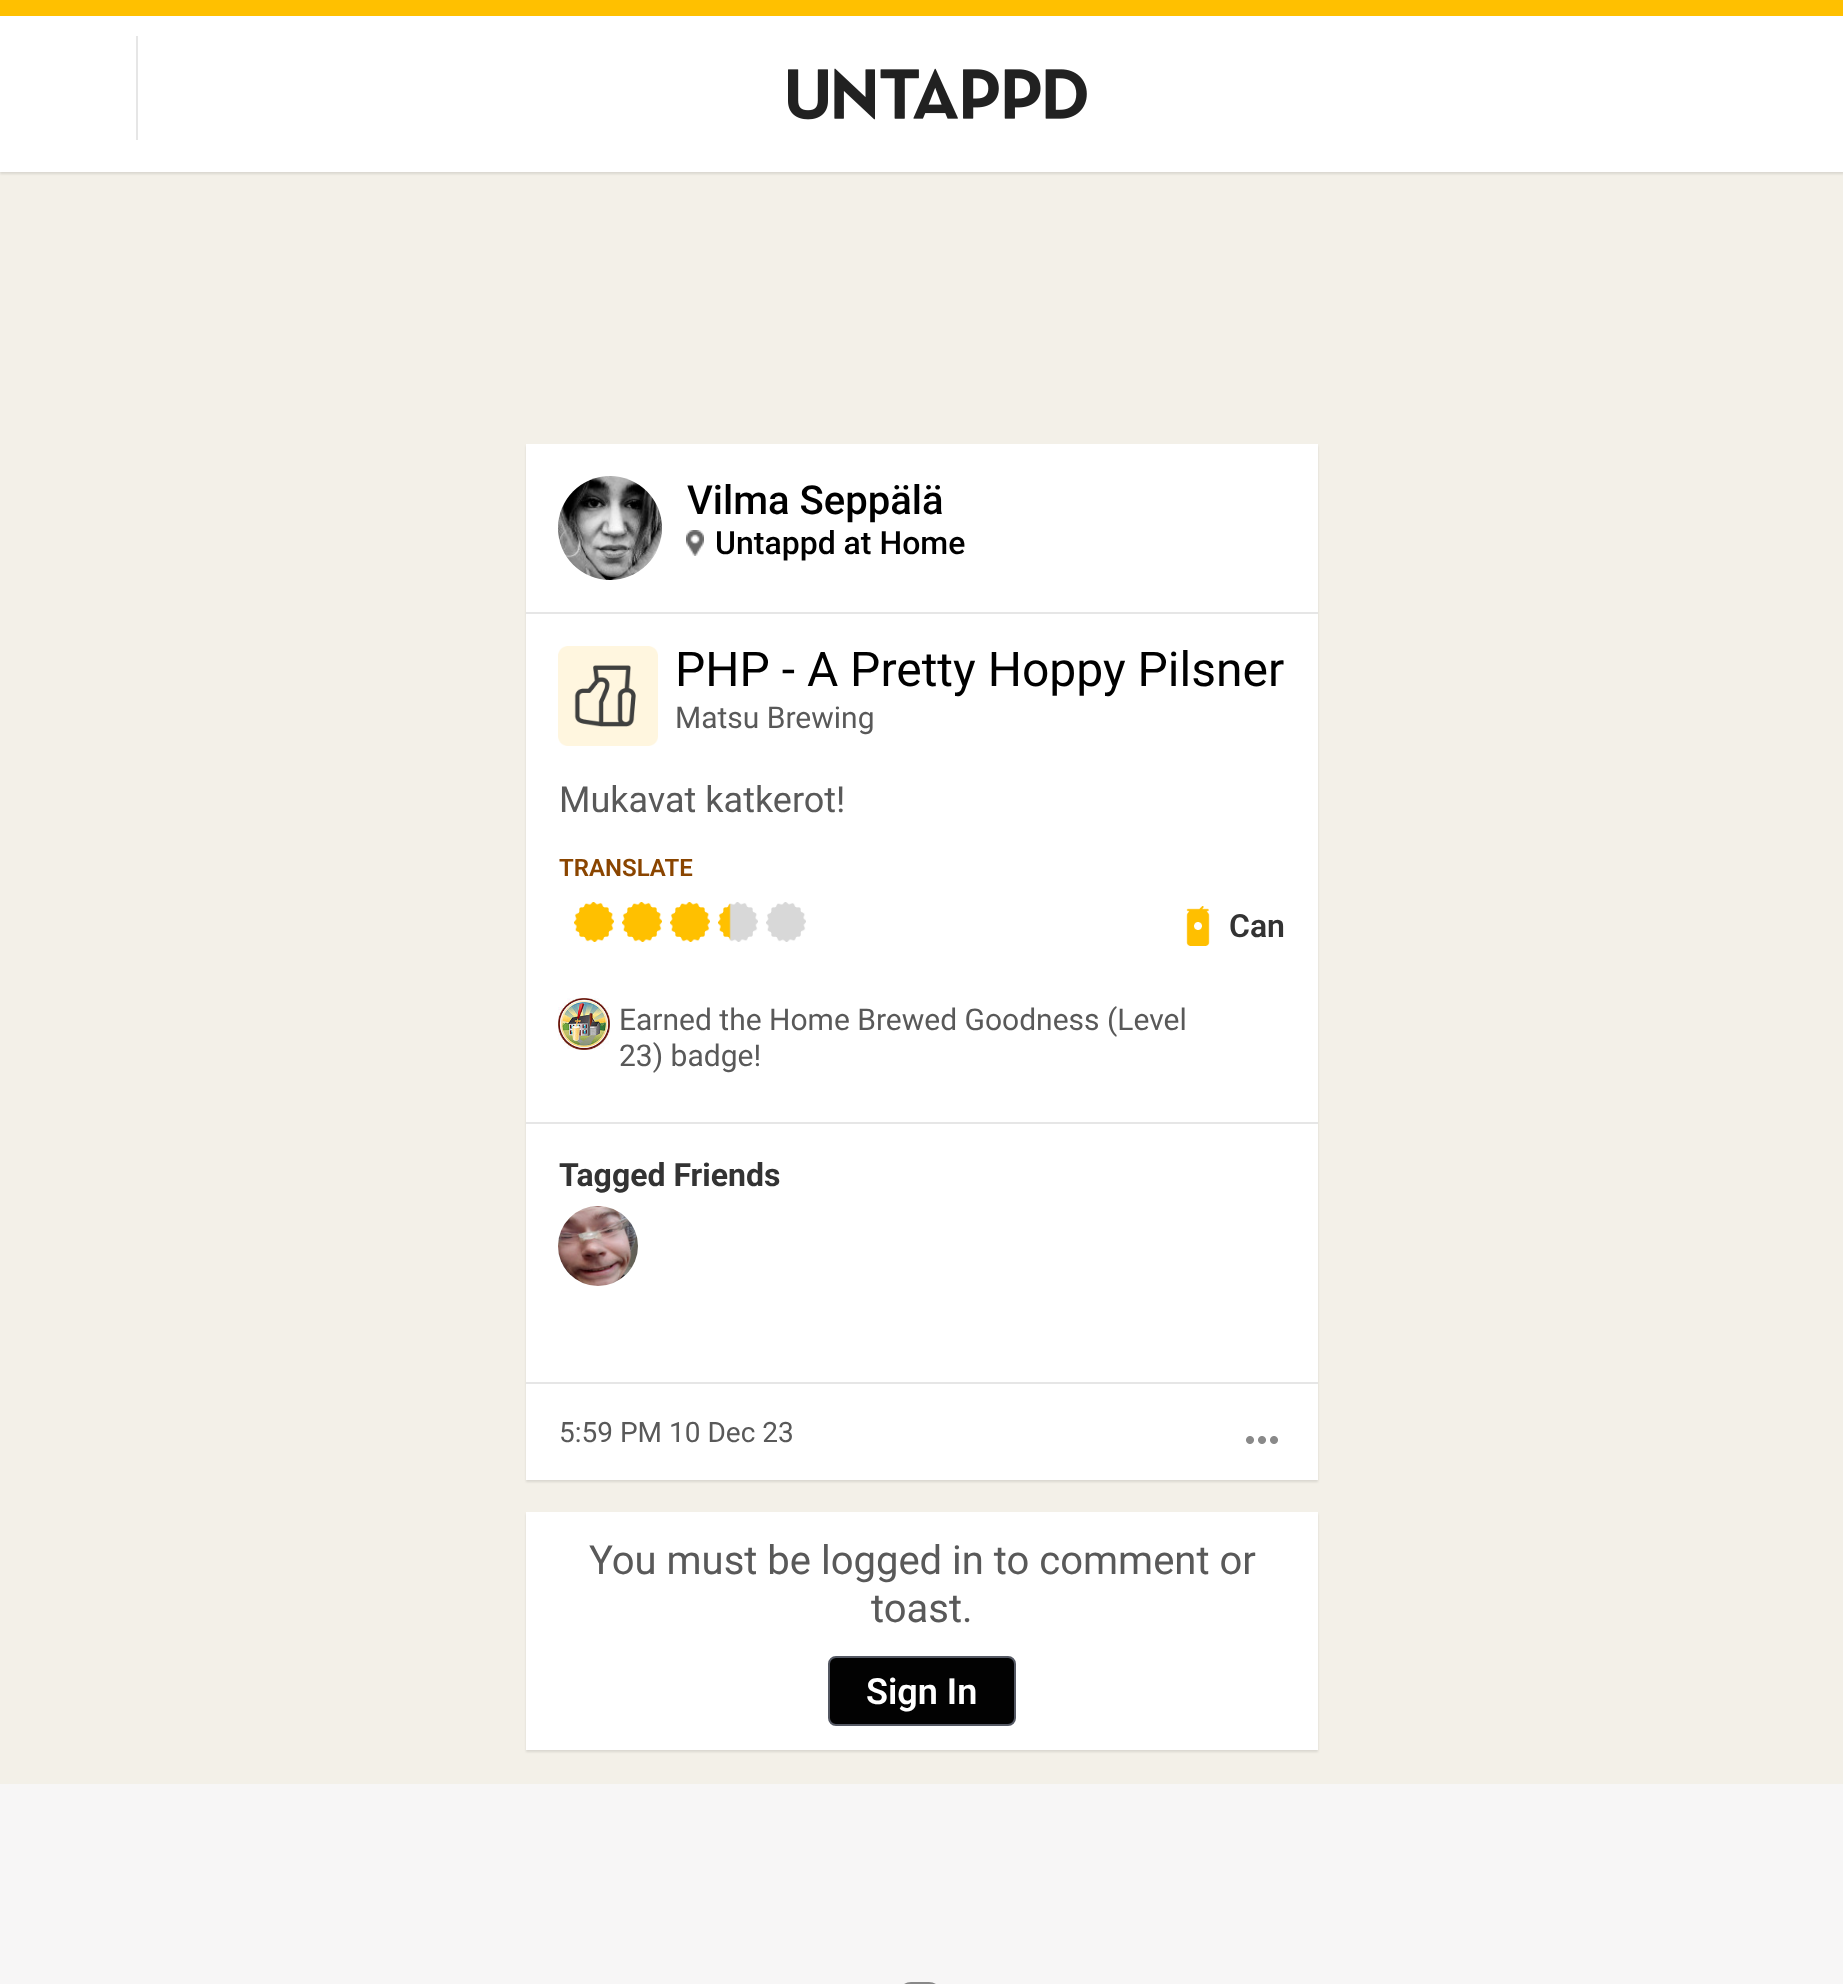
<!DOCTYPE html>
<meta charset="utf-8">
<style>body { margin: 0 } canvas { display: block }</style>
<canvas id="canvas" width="1843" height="1984"></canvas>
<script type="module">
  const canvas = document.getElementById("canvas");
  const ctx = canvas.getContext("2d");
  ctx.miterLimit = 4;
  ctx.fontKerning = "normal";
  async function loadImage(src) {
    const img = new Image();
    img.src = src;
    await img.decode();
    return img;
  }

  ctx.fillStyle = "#f3f0e8";
  ctx.fillRect(0, 0, 1843, 1984);
  ctx.fillStyle = "rgba(0, 0, 0, 0.1)";
  ctx.filter = "blur(1px)";
  ctx.beginPath();
  ctx.rect(0, 2, 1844, 172);
  ctx.fill();
  ctx.filter = "none";
  ctx.fillStyle = "#ffffff";
  ctx.fillRect(0, 16, 1843, 156);
  ctx.fillStyle = "#ffc000";
  ctx.fillRect(0, 0, 1843, 16);
  ctx.fillStyle = "#e6e6e6";
  ctx.fillRect(136, 36, 2, 104);
  ctx.drawImage(await loadImage("img1.png"), 788, 68, 299, 52);
  ctx.fillStyle = "rgba(0, 0, 0, 0.1)";
  ctx.filter = "blur(1px)";
  ctx.beginPath();
  ctx.rect(526, 446, 792, 1036);
  ctx.fill();
  ctx.filter = "none";
  ctx.fillStyle = "#ffffff";
  ctx.fillRect(526, 444, 792, 1036);
  ctx.fillStyle = "#e6e6e6";
  ctx.fillRect(526, 612, 792, 2);
  ctx.drawImage(await loadImage("img2.png"), 558, 476, 104, 104);
  ctx.font = "500 40px Roboto";
  ctx.fillStyle = "#000000";
  ctx.fillText("Vilma Seppälä", 687, 514);
  ctx.drawImage(await loadImage("img3.png"), 686, 530, 18, 26);
  ctx.font = "500 32px Roboto";
  ctx.fillText("Untappd at Home", 715, 554);
  ctx.fillStyle = "#e6e6e6";
  ctx.fillRect(526, 1122, 792, 2);
  ctx.drawImage(await loadImage("img4.png"), 558, 646, 100, 100);
  ctx.font = "48px Roboto";
  ctx.fillStyle = "#000000";
  ctx.fillText("PHP - A Pretty Hoppy Pilsner", 675, 686);
  ctx.font = "30px Roboto";
  ctx.fillStyle = "#595959";
  ctx.fillText("Matsu Brewing", 675, 728);
  ctx.font = "36px Roboto";
  ctx.fillText("Mukavat katkerot!", 559, 812);
  ctx.font = "600 24px Roboto";
  ctx.fillStyle = "#8a4500";
  ctx.fillText("TRANSLATE", 559, 876);
  ctx.drawImage(await loadImage("img5.png"), 574, 902, 40, 40);
  ctx.drawImage(await loadImage("img6.png"), 622, 902, 40, 40);
  ctx.drawImage(await loadImage("img6.png"), 670, 902, 40, 40);
  ctx.drawImage(await loadImage("img7.png"), 718, 902, 40, 40);
  ctx.drawImage(await loadImage("img8.png"), 766, 902, 40, 40);
  ctx.drawImage(await loadImage("img9.png"), 1186, 906, 24, 40);
  ctx.font = "600 32px Roboto";
  ctx.fillStyle = "#333333";
  ctx.fillText("Can", 1229, 937);
  ctx.drawImage(await loadImage("img10.png"), 558, 998, 52, 52);
  ctx.font = "30px Roboto";
  ctx.fillStyle = "#595959";
  ctx.fillText("Earned the Home Brewed Goodness (Level", 619, 1030);
  ctx.fillText("23) badge!", 619, 1066);
  ctx.fillStyle = "#e6e6e6";
  ctx.fillRect(526, 1382, 792, 2);
  ctx.font = "bold 32px Roboto";
  ctx.fillStyle = "#333333";
  ctx.fillText("Tagged Friends", 559, 1186);
  ctx.drawImage(await loadImage("img11.png"), 558, 1206, 80, 80);
  ctx.font = "28px Roboto";
  ctx.fillStyle = "#595959";
  ctx.fillText("5:59 PM 10 Dec 23", 559, 1442);
  ctx.drawImage(await loadImage("img12.png"), 1246, 1436, 32, 8);
  ctx.fillStyle = "rgba(0, 0, 0, 0.1)";
  ctx.filter = "blur(1px)";
  ctx.beginPath();
  ctx.rect(526, 1514, 792, 238);
  ctx.fill();
  ctx.filter = "none";
  ctx.fillStyle = "#ffffff";
  ctx.fillRect(526, 1512, 792, 238);
  ctx.font = "40px Roboto";
  ctx.fillStyle = "#595959";
  ctx.fillText("You must be logged in to comment or", 589, 1574);
  ctx.fillText("toast.", 871, 1622);
  ctx.fillStyle = "#020202";
  ctx.beginPath();
  ctx.roundRect(829, 1657, 186, 68, 7);
  ctx.fill();
  ctx.strokeStyle = "#545863";
  ctx.lineWidth = 2;
  ctx.stroke();
  ctx.font = "600 36px Roboto";
  ctx.fillStyle = "#ffffff";
  ctx.fillText("Sign In", 866, 1704);
  ctx.fillStyle = "#f7f6f6";
  ctx.fillRect(0, 1784, 1843, 200);
  ctx.beginPath();
  ctx.roundRect(899, 1983, 42, 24, 21);
  ctx.strokeStyle = "#888888";
  ctx.stroke();
</script>
